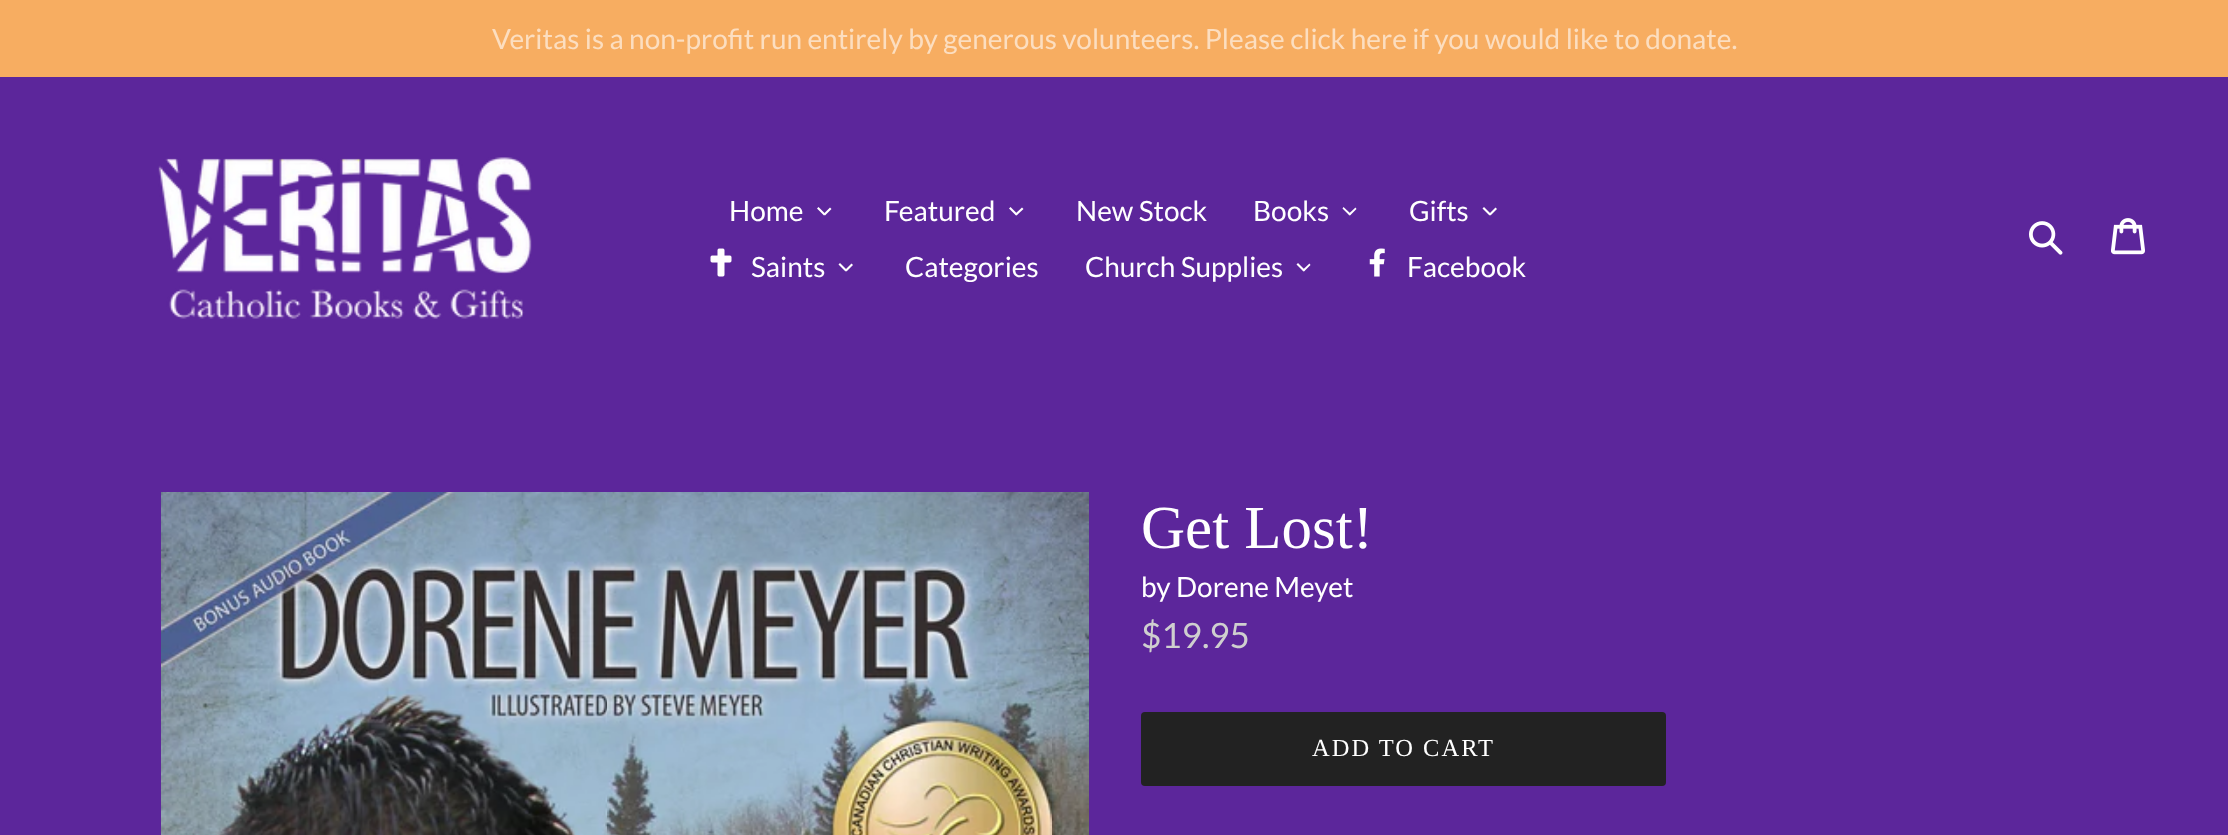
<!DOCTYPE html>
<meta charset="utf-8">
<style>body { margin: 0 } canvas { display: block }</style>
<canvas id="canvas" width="2228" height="835"></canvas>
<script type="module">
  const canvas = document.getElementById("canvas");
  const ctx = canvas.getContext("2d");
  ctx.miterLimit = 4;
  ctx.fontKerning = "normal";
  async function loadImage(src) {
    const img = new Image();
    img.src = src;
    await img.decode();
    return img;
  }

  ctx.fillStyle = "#5c269b";
  ctx.fillRect(0, 0, 2228, 835);
  ctx.fillStyle = "#f7ad61";
  ctx.fillRect(0, 0, 2228, 77);
  ctx.font = "28px Lato";
  ctx.fillStyle = "#fcdec0";
  ctx.fillText("Veritas is a non-profit run entirely by generous volunteers. Please click here if you would like to donate.", 492, 49);
  ctx.drawImage(await loadImage("img1.png"), 158, 157, 374, 162);
  ctx.fillStyle = "#ffffff";
  ctx.fillText("Home", 729, 221);
  ctx.beginPath();
  ctx.moveTo(830, 207.5);
  ctx.lineTo(831.5, 209);
  ctx.lineTo(825, 215.5);
  ctx.lineTo(823.5, 214);
  ctx.closePath();
  ctx.fill();
  ctx.beginPath();
  ctx.moveTo(818.5, 207);
  ctx.lineTo(825.5, 214);
  ctx.lineTo(824, 215.5);
  ctx.lineTo(817, 208.5);
  ctx.closePath();
  ctx.fill();
  ctx.fillText("Featured", 884, 221);
  ctx.beginPath();
  ctx.moveTo(1022, 207.5);
  ctx.lineTo(1023.5, 209);
  ctx.lineTo(1016.5, 215.5);
  ctx.lineTo(1015, 214);
  ctx.closePath();
  ctx.fill();
  ctx.beginPath();
  ctx.moveTo(1010.5, 207);
  ctx.lineTo(1017.5, 214);
  ctx.lineTo(1016, 215.5);
  ctx.lineTo(1009, 208.5);
  ctx.closePath();
  ctx.fill();
  ctx.fillText("New Stock", 1076, 221);
  ctx.fillText("Books", 1253, 221);
  ctx.beginPath();
  ctx.moveTo(1355.5, 207.5);
  ctx.lineTo(1356.5, 209);
  ctx.lineTo(1350, 215.5);
  ctx.lineTo(1348.5, 214);
  ctx.closePath();
  ctx.fill();
  ctx.beginPath();
  ctx.moveTo(1343.5, 207);
  ctx.lineTo(1351, 214);
  ctx.lineTo(1349.5, 215.5);
  ctx.lineTo(1342.5, 208.5);
  ctx.closePath();
  ctx.fill();
  ctx.fillText("Gifts", 1409, 221);
  ctx.beginPath();
  ctx.moveTo(1495.5, 207.5);
  ctx.lineTo(1497, 209);
  ctx.lineTo(1490.5, 215.5);
  ctx.lineTo(1489, 214);
  ctx.closePath();
  ctx.fill();
  ctx.beginPath();
  ctx.moveTo(1484, 207);
  ctx.lineTo(1491, 214);
  ctx.lineTo(1489.5, 215.5);
  ctx.lineTo(1482.5, 208.5);
  ctx.closePath();
  ctx.fill();
  ctx.drawImage(await loadImage("img2.png"), 710, 248, 22, 29);
  ctx.fillText("Saints", 751, 277);
  ctx.beginPath();
  ctx.moveTo(851.5, 263.5);
  ctx.lineTo(853, 265);
  ctx.lineTo(846.5, 271.5);
  ctx.lineTo(845, 270);
  ctx.closePath();
  ctx.fill();
  ctx.beginPath();
  ctx.moveTo(840, 263);
  ctx.lineTo(847, 270);
  ctx.lineTo(845.5, 271.5);
  ctx.lineTo(838.5, 264.5);
  ctx.closePath();
  ctx.fill();
  ctx.fillText("Categories", 905, 277);
  ctx.fillText("Church Supplies", 1085, 277);
  ctx.beginPath();
  ctx.moveTo(1309.5, 263.5);
  ctx.lineTo(1310.5, 265);
  ctx.lineTo(1304, 271.5);
  ctx.lineTo(1302.5, 270);
  ctx.closePath();
  ctx.fill();
  ctx.beginPath();
  ctx.moveTo(1298, 263);
  ctx.lineTo(1305, 270);
  ctx.lineTo(1303.5, 271.5);
  ctx.lineTo(1296.5, 264.5);
  ctx.closePath();
  ctx.fill();
  ctx.drawImage(await loadImage("img3.png"), 1369, 248, 16, 29);
  ctx.fillText("Facebook", 1407, 277);
  ctx.drawImage(await loadImage("img4.png"), 2029, 221, 34, 34);
  ctx.drawImage(await loadImage("img5.png"), 2111, 218, 34, 37);
  ctx.drawImage(await loadImage("img6.png"), 161, 492, 928, 343);
  ctx.font = "61px Liberation Serif";
  ctx.fillText("Get Lost!", 1141, 548);
  ctx.font = "28px Lato";
  ctx.fillText("by Dorene Meyet", 1141, 597);
  ctx.font = "35px Lato";
  ctx.fillStyle = "#cfcfcf";
  ctx.fillText("$19.95", 1141, 648);
  ctx.fillStyle = "#222222";
  ctx.beginPath();
  ctx.roundRect(1141, 712, 525, 74, 4);
  ctx.fill();
  ctx.letterSpacing = "2px";
  ctx.font = "24.5px Liberation Serif";
  ctx.fillStyle = "#ffffff";
  ctx.fillText("ADD TO CART", 1312, 756);
</script>
